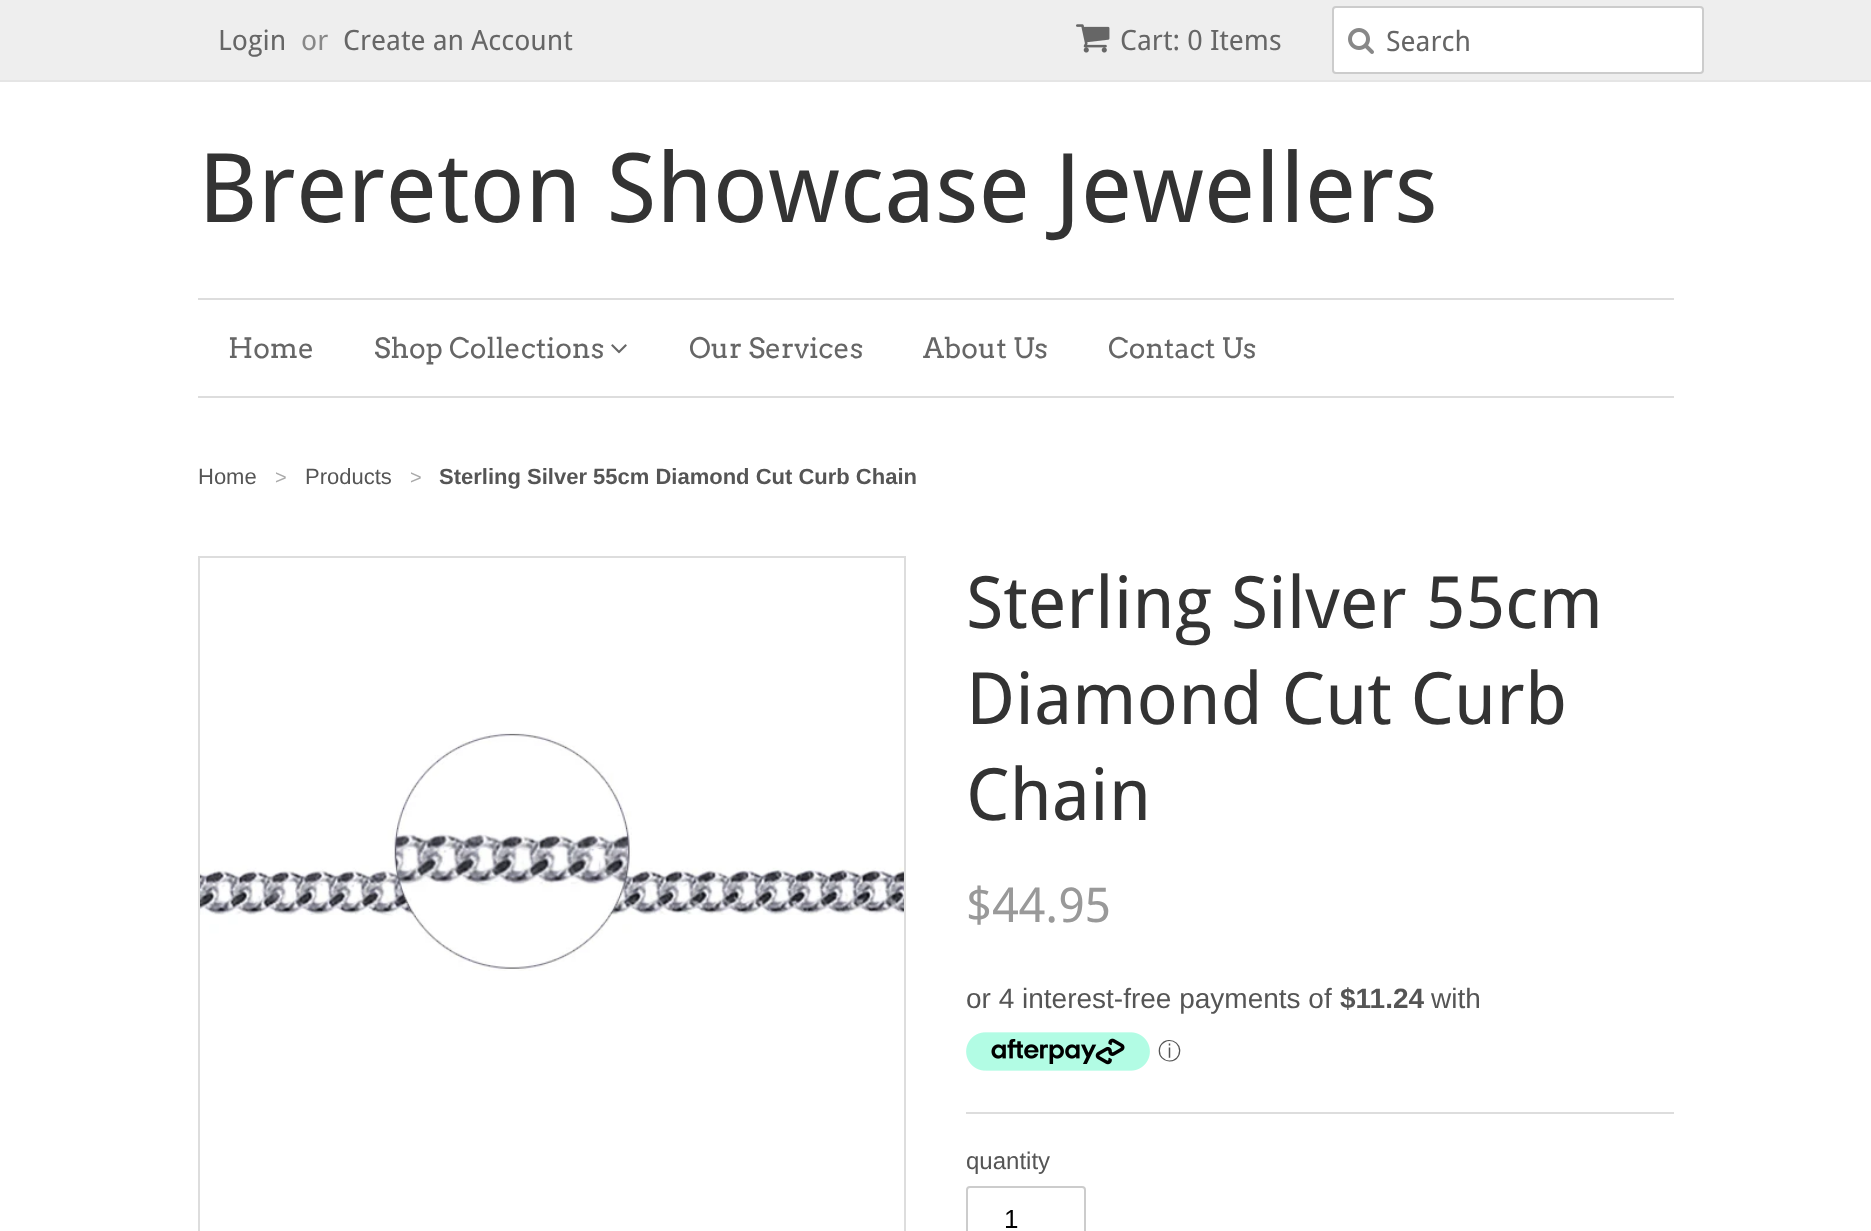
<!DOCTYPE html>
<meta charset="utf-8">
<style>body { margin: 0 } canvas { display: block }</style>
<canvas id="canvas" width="1871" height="1231"></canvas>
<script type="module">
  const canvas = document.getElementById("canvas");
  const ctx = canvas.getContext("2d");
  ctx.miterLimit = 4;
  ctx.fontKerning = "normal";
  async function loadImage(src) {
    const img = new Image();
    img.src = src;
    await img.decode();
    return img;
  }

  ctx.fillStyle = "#ffffff";
  ctx.fillRect(0, 0, 1871, 1231);
  ctx.fillStyle = "#eeeeee";
  ctx.fillRect(0, 0, 1871, 80);
  ctx.fillStyle = "#e5e5e5";
  ctx.fillRect(0, 80, 1871, 2);
  ctx.font = "28px Droid Sans";
  ctx.fillStyle = "#666666";
  ctx.fillText("Login", 218, 50);
  ctx.fillStyle = "#888888";
  ctx.fillText("or", 301, 50);
  ctx.fillStyle = "#666666";
  ctx.fillText("Create an Account", 343, 50);
  ctx.drawImage(await loadImage("img1.png"), 1076, 24, 34, 29);
  ctx.fillText("Cart: 0 Items", 1120, 50);
  ctx.fillStyle = "#ffffff";
  ctx.beginPath();
  ctx.roundRect(1333, 7, 370, 66, 3);
  ctx.fill();
  ctx.strokeStyle = "#cccccc";
  ctx.lineWidth = 2;
  ctx.stroke();
  ctx.drawImage(await loadImage("img2.png"), 1348, 28, 26, 26);
  ctx.fillStyle = "#666666";
  ctx.fillText("Search", 1386, 51);
  ctx.font = "96px Droid Sans";
  ctx.fillStyle = "#333333";
  ctx.fillText("Brereton Showcase Jewellers", 198, 222);
  ctx.fillStyle = "#dddddd";
  ctx.fillRect(198, 298, 1476, 2);
  ctx.fillRect(198, 396, 1476, 2);
  ctx.font = "28px Arvo";
  ctx.fillStyle = "#666666";
  ctx.fillText("Home", 228, 358);
  ctx.fillText("Shop Collections", 374, 358);
  ctx.drawImage(await loadImage("img3.png"), 611, 344, 16, 10);
  ctx.fillText("Our Services", 689, 358);
  ctx.fillText("About Us", 923, 358);
  ctx.fillText("Contact Us", 1108, 358);
  ctx.font = "22px Liberation Sans";
  ctx.fillStyle = "#555555";
  ctx.fillText("Home", 198, 484);
  ctx.font = "20px Liberation Sans";
  ctx.fillStyle = "#aaaaaa";
  ctx.fillText(">", 275, 484);
  ctx.font = "22px Liberation Sans";
  ctx.fillStyle = "#555555";
  ctx.fillText("Products", 305, 484);
  ctx.font = "20px Liberation Sans";
  ctx.fillStyle = "#aaaaaa";
  ctx.fillText(">", 410, 484);
  ctx.font = "bold 22px Liberation Sans";
  ctx.fillStyle = "#555555";
  ctx.fillText("Sterling Silver 55cm Diamond Cut Curb Chain", 439, 484);
  ctx.strokeStyle = "#dddddd";
  ctx.strokeRect(199, 557, 706, 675);
  ctx.drawImage(await loadImage("img4.png"), 200, 733, 704, 238);
  ctx.font = "72px Droid Sans";
  ctx.fillStyle = "#333333";
  ctx.fillText("Sterling Silver 55cm", 966, 628);
  ctx.fillText("Diamond Cut Curb", 966, 724);
  ctx.fillText("Chain", 966, 820);
  ctx.font = "48px Droid Sans";
  ctx.fillStyle = "#999999";
  ctx.fillText("$44.95", 966, 922);
  ctx.font = "28px Liberation Sans";
  ctx.fillStyle = "#555555";
  ctx.fillText("or 4 interest-free payments of", 966, 1008);
  ctx.font = "bold 28px Liberation Sans";
  ctx.fillText("$11.24", 1340, 1008);
  ctx.font = "28px Liberation Sans";
  ctx.fillText("with", 1431, 1008);
  ctx.drawImage(await loadImage("img5.png"), 966, 1032, 184, 39);
  ctx.font = "500 23px WenQuanYi Zen Hei";
  ctx.fillText("ⓘ", 1158, 1059);
  ctx.fillStyle = "#dddddd";
  ctx.fillRect(966, 1112, 708, 2);
  ctx.font = "24px Liberation Sans";
  ctx.fillStyle = "#555555";
  ctx.fillText("quantity", 966, 1169);
  ctx.beginPath();
  ctx.roundRect(967, 1187, 118, 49, 3);
  ctx.strokeStyle = "#cccccc";
  ctx.stroke();
  ctx.font = "26px Liberation Sans";
  ctx.fillStyle = "#000000";
  ctx.fillText("1", 1004, 1228);
</script>
